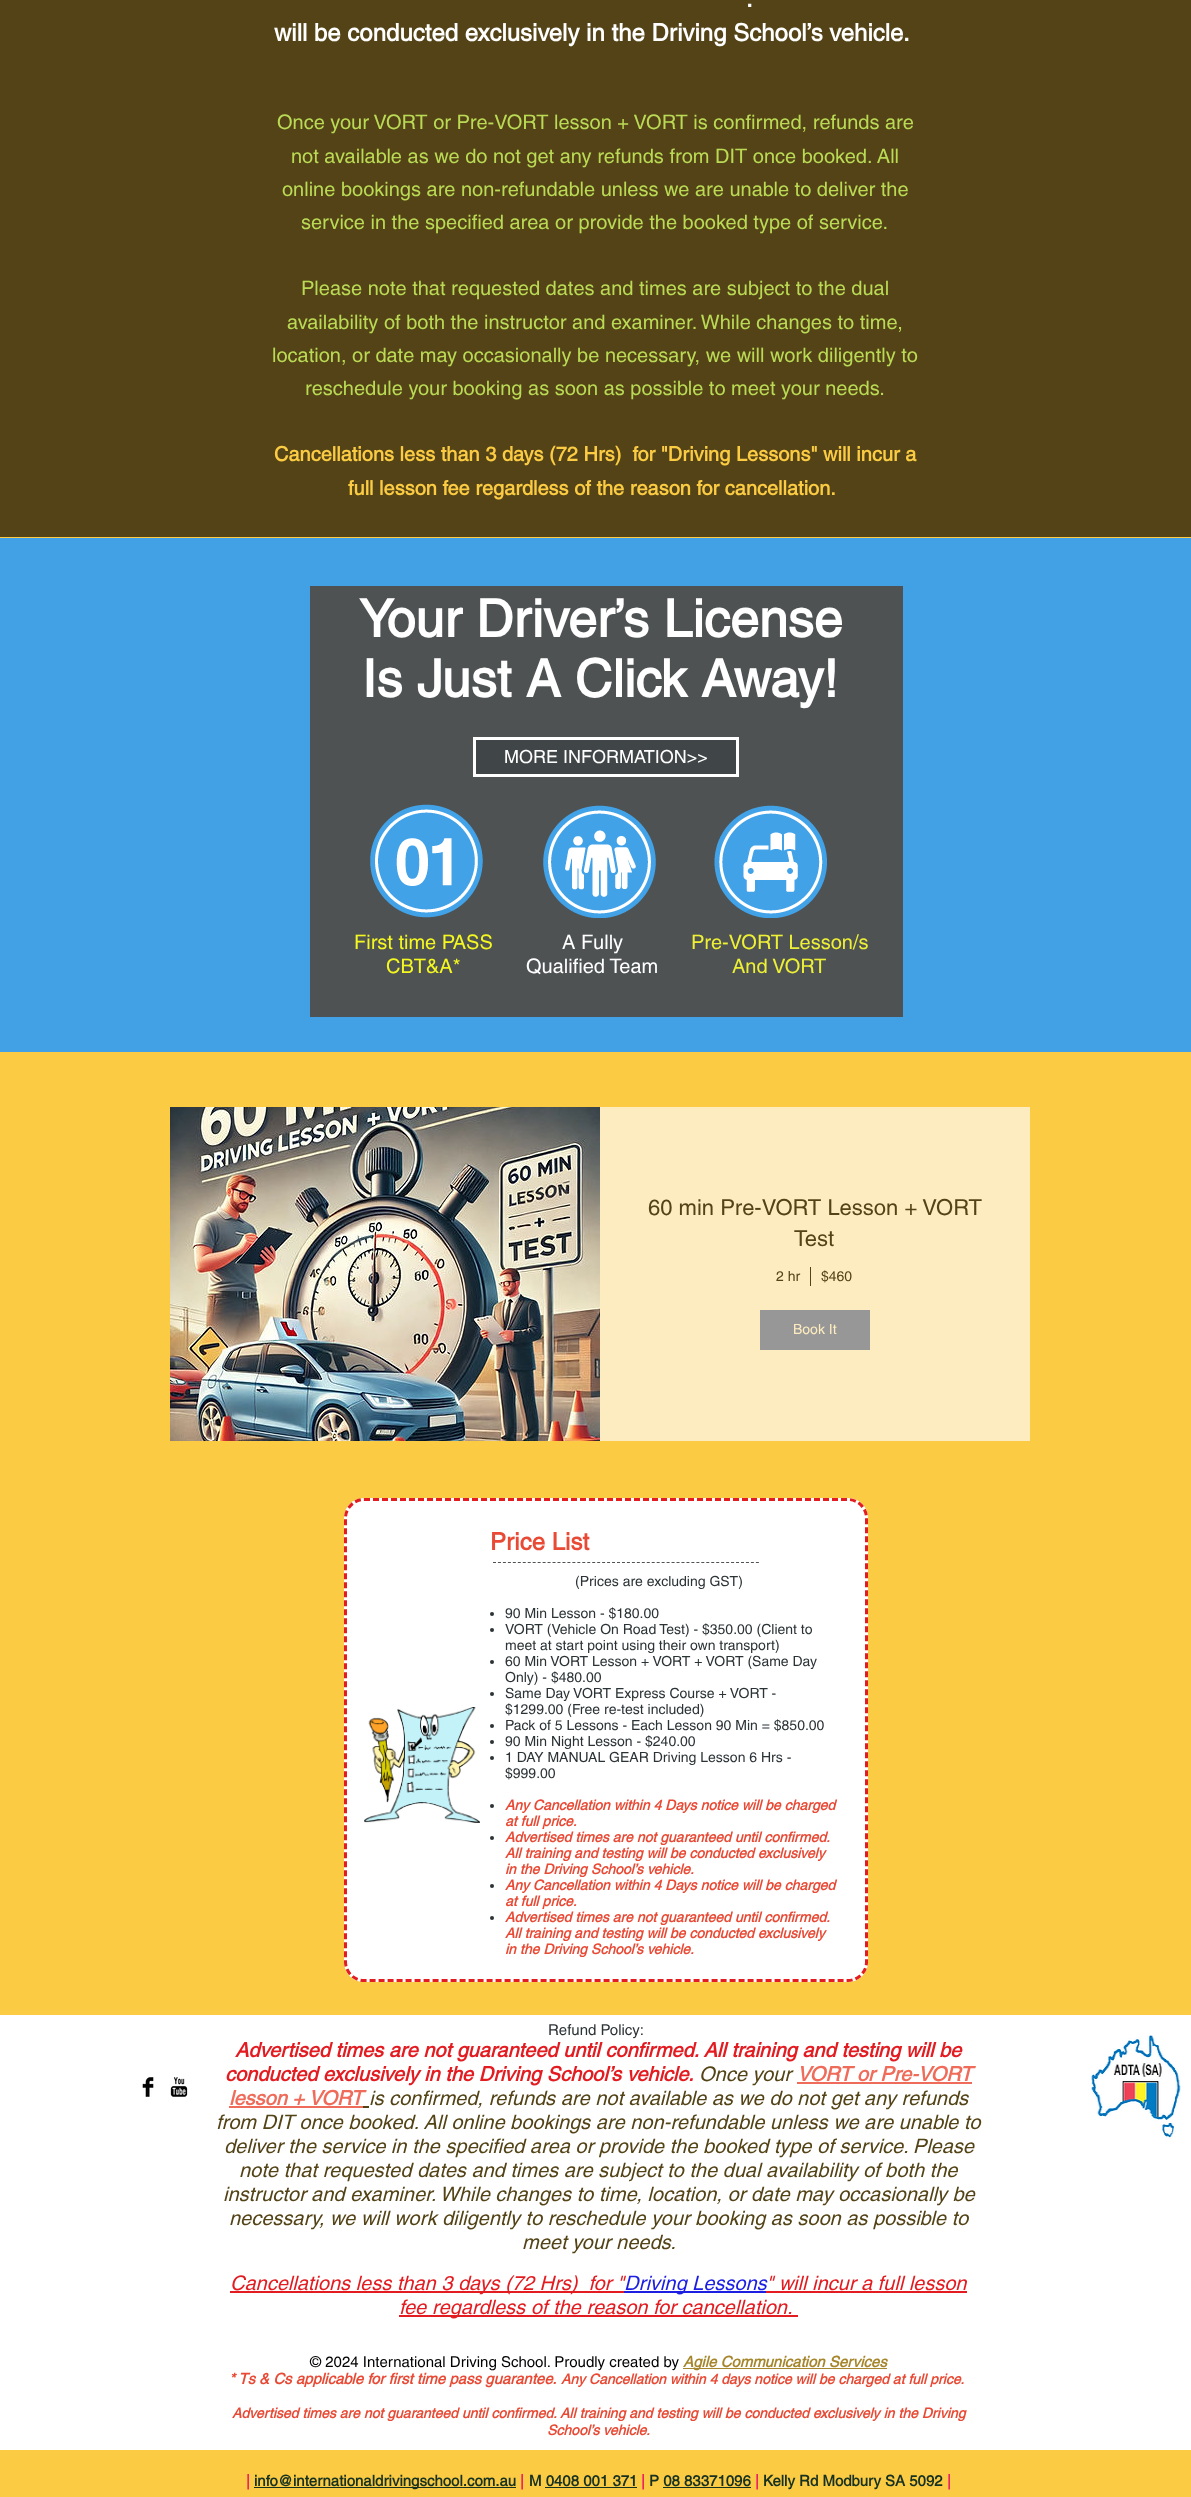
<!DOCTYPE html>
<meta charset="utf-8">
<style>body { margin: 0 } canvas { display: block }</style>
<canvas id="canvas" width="1191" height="2497"></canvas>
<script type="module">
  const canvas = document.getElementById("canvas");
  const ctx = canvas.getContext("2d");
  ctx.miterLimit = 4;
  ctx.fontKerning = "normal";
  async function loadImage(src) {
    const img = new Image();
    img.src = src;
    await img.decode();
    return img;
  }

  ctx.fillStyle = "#facb43";
  ctx.fillRect(0, 0, 1191, 2497);
  ctx.fillStyle = "#534316";
  ctx.fillRect(0, 0, 1191, 537);
  ctx.font = "bold 24px helvetica";
  ctx.fillStyle = "#ffffff";
  ctx.fillText(".", 746, 7);
  ctx.fillText("will be conducted exclusively in the Driving School’s vehicle.", 274, 41);
  ctx.font = "20px helvetica";
  ctx.fillStyle = "#bada55";
  ctx.fillText("Once your VORT or Pre-VORT lesson + VORT is confirmed, refunds are", 277, 129);
  ctx.fillText("not available as we do not get any refunds from DIT once booked. All", 291, 163);
  ctx.fillText("online bookings are non-refundable unless we are unable to deliver the", 282, 196);
  ctx.fillText("service in the specified area or provide the booked type of service.", 301, 229);
  ctx.fillText("Please note that requested dates and times are subject to the dual", 301, 295);
  ctx.fillText("availability of both the instructor and examiner. While changes to time,", 287, 329);
  ctx.fillText("location, or date may occasionally be necessary, we will work diligently to", 272, 362);
  ctx.fillText("reschedule your booking as soon as possible to meet your needs.", 305, 395);
  ctx.font = "bold 20px helvetica";
  ctx.fillStyle = "#facb43";
  ctx.fillText("Cancellations less than 3 days (72 Hrs)  for \"Driving Lessons\" will incur a", 274, 461);
  ctx.fillText("full lesson fee regardless of the reason for cancellation.", 348, 495);
  ctx.fillStyle = "#42a1e5";
  ctx.fillRect(0, 538, 1191, 514);
  ctx.fillStyle = "#4e5253";
  ctx.fillRect(310, 586, 593, 431);
  ctx.font = "bold 52px helvetica";
  ctx.fillStyle = "#ffffff";
  ctx.fillText("Your Driver’s License", 359, 637);
  ctx.fillText("Is Just A Click Away!", 362, 697);
  ctx.fillStyle = "#404547";
  ctx.beginPath();
  ctx.rect(474.5, 738.5, 263, 37);
  ctx.fill();
  ctx.strokeStyle = "#ffffff";
  ctx.lineWidth = 3;
  ctx.stroke();
  ctx.font = "18px helvetica";
  ctx.fillStyle = "#ffffff";
  ctx.fillText("MORE INFORMATION>>", 504, 763);
  ctx.drawImage(await loadImage("img1.png"), 370, 804, 113, 114);
  ctx.drawImage(await loadImage("img2.png"), 543, 805, 113, 113);
  ctx.drawImage(await loadImage("img3.png"), 714, 805, 113, 113);
  ctx.font = "20px helvetica";
  ctx.fillStyle = "#f4f720";
  ctx.fillText("First time PASS", 354, 949);
  ctx.fillText("CBT&A*", 386, 973);
  ctx.fillStyle = "#ffffff";
  ctx.fillText("A Fully", 562, 949);
  ctx.fillText("Qualified Team", 526, 973);
  ctx.fillStyle = "#edf035";
  ctx.fillText("Pre-VORT Lesson/s", 691, 949);
  ctx.fillText("And VORT", 732, 973);
  ctx.fillStyle = "#fdecbf";
  ctx.fillRect(600, 1107, 430, 334);
  ctx.drawImage(await loadImage("img4.png"), 170, 1107, 430, 334);
  ctx.font = "22px helvetica";
  ctx.fillStyle = "#534316";
  ctx.fillText("60 min Pre-VORT Lesson + VORT", 648, 1215);
  ctx.fillText("Test", 794, 1246);
  ctx.fillRect(810, 1267, 1, 19);
  ctx.font = "14px helvetica";
  ctx.fillText("2 hr", 776, 1281);
  ctx.fillText("$460", 821, 1281);
  ctx.fillStyle = "#979797";
  ctx.fillRect(760, 1310, 110, 40);
  ctx.fillStyle = "#fdecbf";
  ctx.fillText("Book It", 793, 1334);
  ctx.fillStyle = "#ffffff";
  ctx.beginPath();
  ctx.roundRect(344, 1498, 524, 484, 20);
  ctx.fill();
  ctx.beginPath();
  ctx.moveTo(364, 1499.5);
  ctx.lineTo(848, 1499.5);
  ctx.bezierCurveTo(858, 1499.5, 866.5, 1508, 866.5, 1518);
  ctx.lineTo(866.5, 1962);
  ctx.bezierCurveTo(866.5, 1972, 858, 1980.5, 848, 1980.5);
  ctx.lineTo(364, 1980.5);
  ctx.bezierCurveTo(354, 1980.5, 345.5, 1972, 345.5, 1962);
  ctx.lineTo(345.5, 1518);
  ctx.bezierCurveTo(345.5, 1508, 354, 1499.5, 364, 1499.5);
  ctx.closePath();
  ctx.strokeStyle = "#e21c21";
  ctx.setLineDash([6, 3]);
  ctx.stroke();
  ctx.font = "bold 24px helvetica";
  ctx.fillStyle = "#e84a35";
  ctx.fillText("Price List", 490, 1550);
  ctx.beginPath();
  ctx.moveTo(493, 1562.5);
  ctx.lineTo(759, 1562.5);
  ctx.strokeStyle = "#4e5253";
  ctx.lineWidth = 1;
  ctx.setLineDash([3, 1.96]);
  ctx.stroke();
  ctx.drawImage(await loadImage("img5.png"), 364, 1707, 116, 116);
  ctx.font = "14px helvetica";
  ctx.fillStyle = "#2c3336";
  ctx.fillText("(Prices are excluding GST)", 575, 1586);
  ctx.beginPath();
  ctx.arc(492, 1614, 2, 0, Math.PI * 2);
  ctx.fill();
  ctx.fillText("90 Min Lesson - $180.00", 505, 1618);
  ctx.beginPath();
  ctx.arc(492, 1630, 2, 0, Math.PI * 2);
  ctx.fill();
  ctx.fillText("VORT (Vehicle On Road Test) - $350.00 (Client to", 505, 1634);
  ctx.fillText("meet at start point using their own transport)", 505, 1650);
  ctx.beginPath();
  ctx.arc(492, 1662, 2, 0, Math.PI * 2);
  ctx.fill();
  ctx.fillText("60 Min VORT Lesson + VORT + VORT (Same Day", 505, 1666);
  ctx.fillText("Only) - $480.00", 505, 1682);
  ctx.beginPath();
  ctx.arc(492, 1694, 2, 0, Math.PI * 2);
  ctx.fill();
  ctx.fillText("Same Day VORT Express Course + VORT -", 505, 1698);
  ctx.fillText("$1299.00 (Free re-test included)", 505, 1714);
  ctx.beginPath();
  ctx.arc(492, 1726, 2, 0, Math.PI * 2);
  ctx.fill();
  ctx.fillText("Pack of 5 Lessons - Each Lesson 90 Min = $850.00", 505, 1730);
  ctx.beginPath();
  ctx.arc(492, 1742, 2, 0, Math.PI * 2);
  ctx.fill();
  ctx.fillText("90 Min Night Lesson - $240.00", 505, 1746);
  ctx.beginPath();
  ctx.arc(492, 1758, 2, 0, Math.PI * 2);
  ctx.fill();
  ctx.fillText("1 DAY MANUAL GEAR Driving Lesson 6 Hrs -", 505, 1762);
  ctx.fillText("$999.00", 505, 1778);
  ctx.beginPath();
  ctx.arc(492, 1806, 2, 0, Math.PI * 2);
  ctx.fill();
  ctx.font = "italic bold 14px helvetica";
  ctx.fillStyle = "#e84a35";
  ctx.fillText("Any Cancellation within 4 Days notice will be charged", 505, 1810);
  ctx.fillText("at full price.", 505, 1826);
  ctx.fillStyle = "#2c3336";
  ctx.beginPath();
  ctx.arc(492, 1838, 2, 0, Math.PI * 2);
  ctx.fill();
  ctx.fillStyle = "#e84a35";
  ctx.fillText("Advertised times are not guaranteed until confirmed.", 505, 1842);
  ctx.fillText("All training and testing will be conducted exclusively", 505, 1858);
  ctx.fillText("in the Driving School’s vehicle.", 505, 1874);
  ctx.fillStyle = "#2c3336";
  ctx.beginPath();
  ctx.arc(492, 1886, 2, 0, Math.PI * 2);
  ctx.fill();
  ctx.fillStyle = "#e84a35";
  ctx.fillText("Any Cancellation within 4 Days notice will be charged", 505, 1890);
  ctx.fillText("at full price.", 505, 1906);
  ctx.fillStyle = "#2c3336";
  ctx.beginPath();
  ctx.arc(492, 1918, 2, 0, Math.PI * 2);
  ctx.fill();
  ctx.fillStyle = "#e84a35";
  ctx.fillText("Advertised times are not guaranteed until confirmed.", 505, 1922);
  ctx.fillText("All training and testing will be conducted exclusively", 505, 1938);
  ctx.fillText("in the Driving School’s vehicle.", 505, 1954);
  ctx.fillStyle = "#ffffff";
  ctx.fillRect(0, 2015, 1191, 435);
  ctx.drawImage(await loadImage("img6.png"), 142, 2077, 12, 20);
  ctx.drawImage(await loadImage("img7.png"), 170, 2077, 18, 20);
  ctx.font = "15px helvetica";
  ctx.fillStyle = "#2c3336";
  ctx.fillText("Refund Policy:", 548, 2035);
  ctx.font = "italic bold 20px helvetica";
  ctx.fillStyle = "#e21c21";
  ctx.fillText("Advertised times are not guaranteed until confirmed. All training and testing will be", 235, 2057);
  ctx.fillText("conducted exclusively in the Driving School’s vehicle.", 225, 2081);
  ctx.font = "italic 20px helvetica";
  ctx.fillStyle = "#534316";
  ctx.fillText("Once your", 699, 2081);
  ctx.font = "italic bold 20px helvetica";
  ctx.fillStyle = "#ef6c5b";
  ctx.fillText("VORT or Pre-VORT", 797, 2081);
  ctx.fillRect(797, 2082, 175, 2);
  ctx.fillText("lesson + VORT", 229, 2105);
  ctx.fillRect(229, 2106, 134, 2);
  ctx.font = "italic 20px helvetica";
  ctx.fillStyle = "#534316";
  ctx.fillText("is confirmed, refunds are not available as we do not get any refunds", 369, 2105);
  ctx.fillRect(363, 2106, 6, 2);
  ctx.fillText("from DIT once booked. All online bookings are non-refundable unless we are unable to", 216, 2129);
  ctx.fillText("deliver the service in the specified area or provide the booked type of service. Please", 224, 2153);
  ctx.fillText("note that requested dates and times are subject to the dual availability of both the", 239, 2177);
  ctx.fillText("instructor and examiner. While changes to time, location, or date may occasionally be", 223, 2201);
  ctx.fillText("necessary, we will work diligently to reschedule your booking as soon as possible to", 229, 2225);
  ctx.fillText("meet your needs.", 522, 2249);
  ctx.fillStyle = "#e21c21";
  ctx.fillRect(230, 2291, 394, 2);
  ctx.fillText("Cancellations less than 3 days (72 Hrs)  for \"", 230, 2290);
  ctx.fillStyle = "#1c1fe2";
  ctx.fillRect(624, 2291, 142, 2);
  ctx.fillText("Driving Lessons", 624, 2290);
  ctx.fillStyle = "#e21c21";
  ctx.fillText("\" will incur a full lesson", 766, 2290);
  ctx.fillRect(766, 2291, 201, 2);
  ctx.fillRect(399, 2315, 399, 2);
  ctx.fillText("fee regardless of the reason for cancellation.", 399, 2314);
  ctx.font = "15px helvetica";
  ctx.fillStyle = "#000000";
  ctx.fillText("© 2024 International Driving School. Proudly created by", 310, 2367);
  ctx.fillStyle = "#a6862c";
  ctx.fillRect(683, 2368, 204, 1);
  ctx.font = "italic bold 15px helvetica";
  ctx.fillText("Agile Communication Services", 683, 2367);
  ctx.fillStyle = "#e84a35";
  ctx.fillText("* Ts & Cs applicable for first time pass guarantee.", 229, 2384);
  ctx.font = "italic bold 14px helvetica";
  ctx.fillText("Any Cancellation within 4 days notice will be charged at full price.", 561, 2384);
  ctx.fillText("Advertised times are not guaranteed until confirmed. All training and testing will be conducted exclusively in the Driving", 232, 2418);
  ctx.fillText("School’s vehicle.", 547, 2435);
  ctx.font = "bold 15px helvetica";
  ctx.fillStyle = "#ed1566";
  ctx.fillText("|", 246, 2486);
  ctx.fillStyle = "#173120";
  ctx.fillRect(254, 2487, 262, 1);
  ctx.fillText("info@internationaldrivingschool.com.au", 254, 2486);
  ctx.fillStyle = "#ed1566";
  ctx.fillText("|", 520, 2486);
  ctx.fillStyle = "#173120";
  ctx.fillText("M 0408 001 371", 529, 2486);
  ctx.fillRect(545, 2487, 92, 1);
  ctx.fillStyle = "#ed1566";
  ctx.fillText("|", 641, 2486);
  ctx.fillStyle = "#173120";
  ctx.fillText("P 08 83371096", 649, 2486);
  ctx.fillRect(663, 2487, 88, 1);
  ctx.fillStyle = "#ed1566";
  ctx.fillText("|", 755, 2486);
  ctx.fillStyle = "#173120";
  ctx.fillText("Kelly Rd Modbury SA 5092", 763, 2486);
  ctx.fillStyle = "#ed1566";
  ctx.fillText("|", 947, 2486);
  ctx.drawImage(await loadImage("img8.png"), 1091, 2035, 90, 104);
</script>
